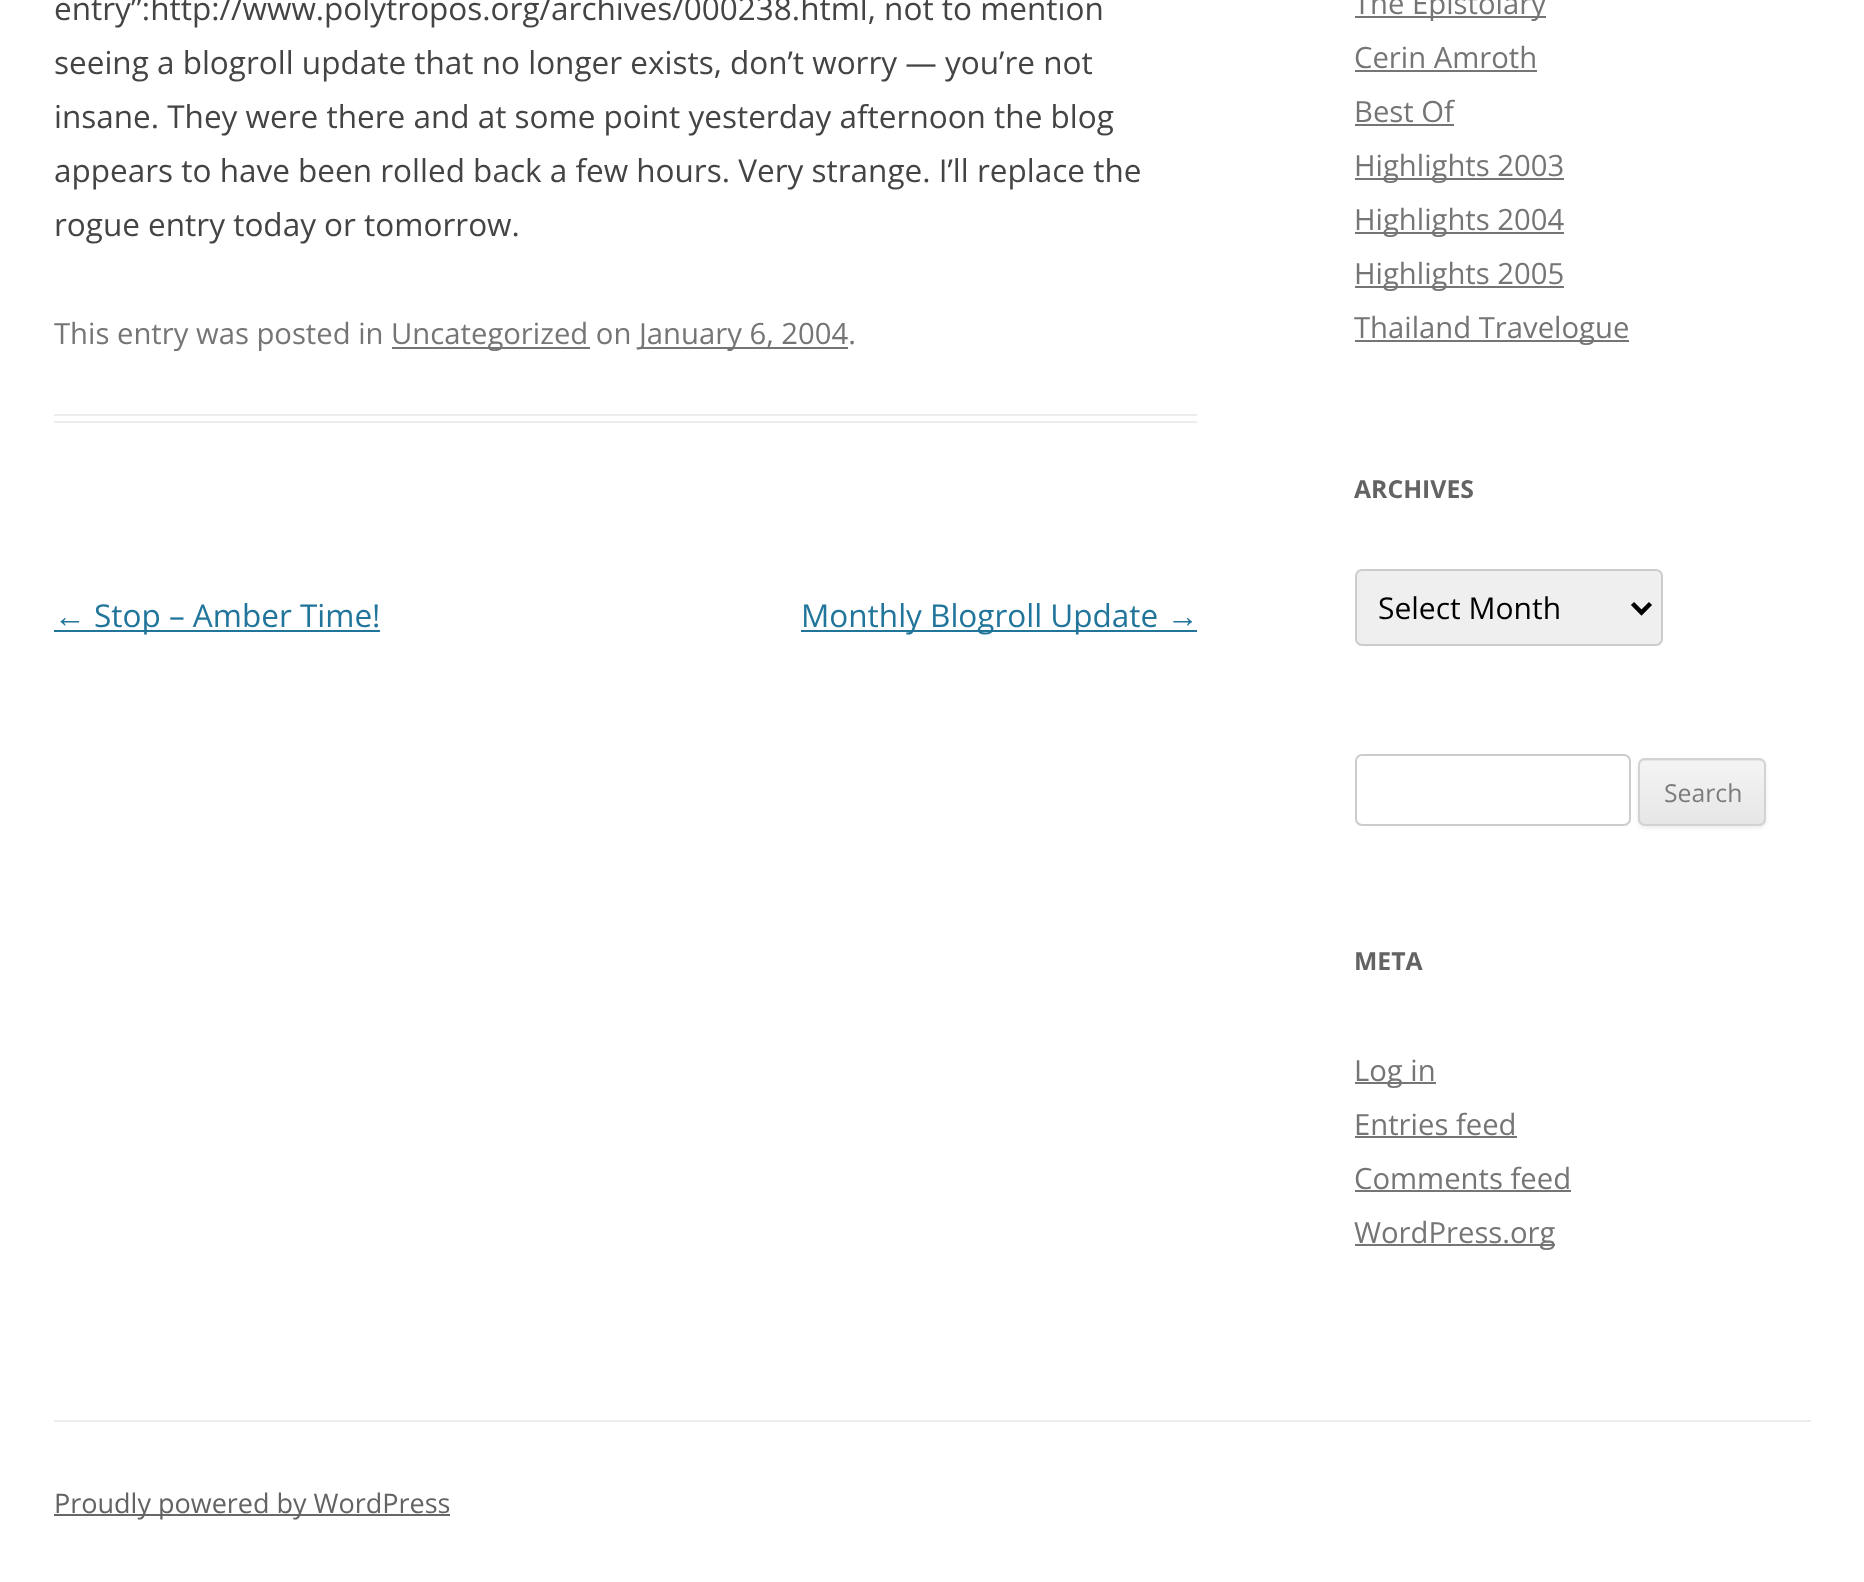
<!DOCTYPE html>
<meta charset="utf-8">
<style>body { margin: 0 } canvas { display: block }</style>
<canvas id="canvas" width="1864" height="1582"></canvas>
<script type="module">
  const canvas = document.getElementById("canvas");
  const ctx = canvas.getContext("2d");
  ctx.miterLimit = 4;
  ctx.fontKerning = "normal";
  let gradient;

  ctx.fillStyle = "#ffffff";
  ctx.fillRect(0, 0, 1864, 1582);
  ctx.fillStyle = "#ededed";
  ctx.fillRect(54, 414, 1143, 2);
  ctx.fillRect(54, 421, 1143, 2);
  ctx.font = "31.5px Open Sans";
  ctx.fillStyle = "#444444";
  ctx.fillText("entry”:http://www.polytropos.org/archives/000238.html, not to mention", 54, 20);
  ctx.fillText("seeing a blogroll update that no longer exists, don’t worry — you’re not", 54, 74);
  ctx.fillText("insane. They were there and at some point yesterday afternoon the blog", 54, 128);
  ctx.fillText("appears to have been rolled back a few hours. Very strange. I’ll replace the", 54, 182);
  ctx.fillText("rogue entry today or tomorrow.", 54, 236);
  ctx.font = "29.25px Open Sans";
  ctx.fillStyle = "#757575";
  ctx.fillText("This entry was posted in", 54, 344);
  ctx.fillRect(392, 347, 198, 2);
  ctx.fillText("Uncategorized on", 391, 344);
  ctx.fillRect(639, 347, 209, 2);
  ctx.fillText("January 6, 2004.", 639, 344);
  ctx.font = "31.5px Liberation Sans";
  ctx.fillStyle = "#21759b";
  ctx.fillText("←", 54, 627);
  ctx.fillRect(54, 630, 326, 2);
  ctx.font = "31.5px Open Sans";
  ctx.fillText("Stop – Amber Time!", 94, 627);
  ctx.fillRect(801, 630, 396, 2);
  ctx.fillText("Monthly Blogroll Update", 801, 627);
  ctx.font = "31.5px Liberation Sans";
  ctx.fillText("→", 1167, 627);
  ctx.fillStyle = "#757575";
  ctx.fillRect(1355, 16, 191, 2);
  ctx.font = "29.25px Open Sans";
  ctx.fillText("The Epistolary", 1354, 14);
  ctx.fillText("Cerin Amroth", 1354, 68);
  ctx.fillRect(1355, 70, 182, 2);
  ctx.fillText("Best Of", 1354, 122);
  ctx.fillRect(1355, 124, 99, 2);
  ctx.fillRect(1355, 178, 209, 2);
  ctx.fillText("Highlights 2003", 1354, 176);
  ctx.fillRect(1355, 232, 209, 2);
  ctx.fillText("Highlights 2004", 1354, 230);
  ctx.fillRect(1355, 286, 209, 2);
  ctx.fillText("Highlights 2005", 1354, 284);
  ctx.fillRect(1355, 340, 274, 2);
  ctx.fillText("Thailand Travelogue", 1354, 338);
  ctx.font = "bold 24.75px Open Sans";
  ctx.fillStyle = "#636363";
  ctx.fillText("ARCHIVES", 1354, 498);
  ctx.fillStyle = "#efefef";
  ctx.beginPath();
  ctx.roundRect(1356, 570, 306, 75, 6);
  ctx.fill();
  ctx.strokeStyle = "#cccccc";
  ctx.lineWidth = 2;
  ctx.stroke();
  ctx.beginPath();
  ctx.moveTo(1632.5, 603.5);
  ctx.lineTo(1641.5, 612.5);
  ctx.lineTo(1650.5, 603.5);
  ctx.strokeStyle = "#000000";
  ctx.lineWidth = 4.5;
  ctx.stroke();
  ctx.font = "30px Open Sans";
  ctx.fillStyle = "#000000";
  ctx.fillText("Select Month", 1378, 619);
  ctx.beginPath();
  ctx.roundRect(1356, 755, 274, 70, 6);
  ctx.strokeStyle = "#cccccc";
  ctx.lineWidth = 2;
  ctx.stroke();
  ctx.fillStyle = "rgba(64, 64, 64, 0.1)";
  ctx.filter = "blur(2px)";
  ctx.beginPath();
  ctx.roundRect(1638, 761, 128, 67, 7);
  ctx.fill();
  ctx.filter = "none";
  ctx.fillStyle = "#e6e6e6";
  ctx.beginPath();
  ctx.roundRect(1638, 758, 128, 68, 7);
  ctx.fill();
  ctx.save();
  ctx.beginPath();
  ctx.roundRect(1638, 758, 128, 68, 7);
  ctx.clip();
  gradient = ctx.createLinearGradient(1702, 761, 1702, 824);
  gradient.addColorStop(0, "#f4f4f4");
  gradient.addColorStop(1, "#e6e6e6");
  ctx.fillStyle = gradient;
  ctx.fillRect(1638, 761, 128, 63);
  ctx.restore();
  ctx.beginPath();
  ctx.roundRect(1639, 759, 126, 66, 6);
  ctx.strokeStyle = "#d2d2d2";
  ctx.stroke();
  ctx.font = "24.75px Open Sans";
  ctx.fillStyle = "#7c7c7c";
  ctx.fillText("Search", 1664, 802);
  ctx.font = "bold 24.75px Open Sans";
  ctx.fillStyle = "#636363";
  ctx.fillText("META", 1354, 970);
  ctx.fillStyle = "#757575";
  ctx.fillRect(1355, 1082, 81, 2);
  ctx.font = "29.25px Open Sans";
  ctx.fillText("Log in", 1354, 1081);
  ctx.fillText("Entries feed", 1354, 1135);
  ctx.fillRect(1355, 1136, 162, 2);
  ctx.fillText("Comments feed", 1354, 1189);
  ctx.fillRect(1355, 1190, 216, 2);
  ctx.fillRect(1355, 1244, 200, 2);
  ctx.fillText("WordPress.org", 1354, 1243);
  ctx.fillStyle = "#ededed";
  ctx.fillRect(54, 1420, 1757, 2);
  ctx.fillStyle = "#686868";
  ctx.fillRect(54, 1514, 396, 2);
  ctx.font = "27px Open Sans";
  ctx.fillStyle = "#636363";
  ctx.fillText("Proudly powered by WordPress", 54, 1513);
</script>
